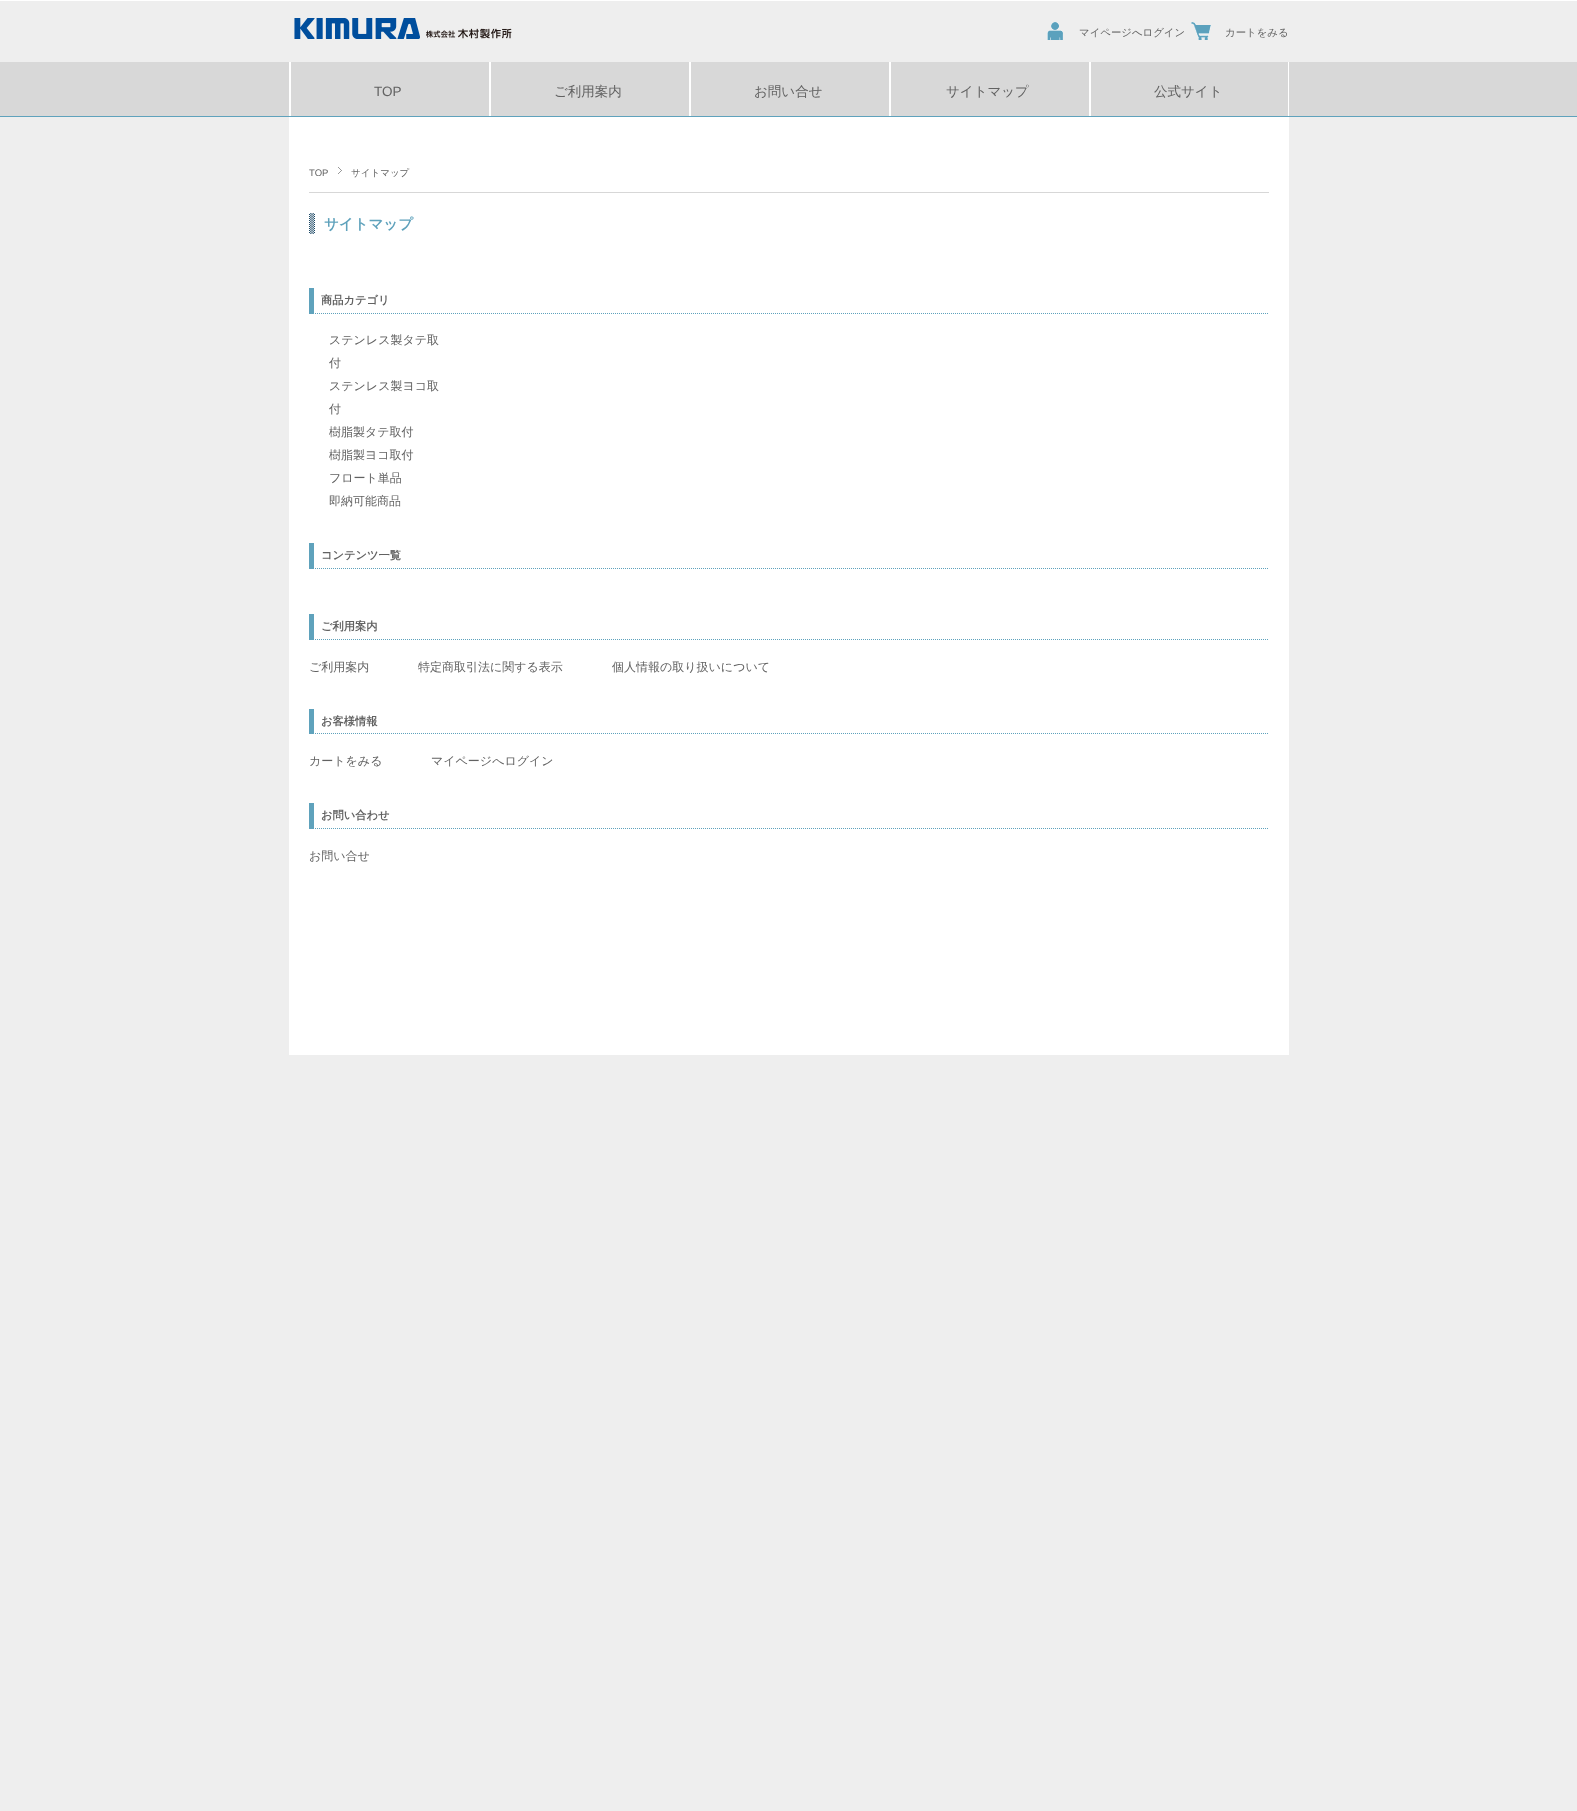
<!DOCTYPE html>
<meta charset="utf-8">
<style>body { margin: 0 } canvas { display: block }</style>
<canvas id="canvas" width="1577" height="1811"></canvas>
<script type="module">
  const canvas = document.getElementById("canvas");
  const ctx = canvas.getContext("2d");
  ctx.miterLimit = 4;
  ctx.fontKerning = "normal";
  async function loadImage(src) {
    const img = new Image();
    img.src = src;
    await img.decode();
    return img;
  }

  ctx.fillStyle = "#eeeeee";
  ctx.fillRect(0, 0, 1577, 1811);
  ctx.fillStyle = "#ffffff";
  ctx.fillRect(0, 0, 1577, 1);
  ctx.drawImage(await loadImage("img1.png"), 294, 18, 218, 21);
  ctx.drawImage(await loadImage("img2.png"), 1047, 22, 16, 18);
  ctx.font = "500 10.4px WenQuanYi Zen Hei";
  ctx.fillStyle = "#626262";
  ctx.fillText("マイページへログイン", 1079, 36);
  ctx.drawImage(await loadImage("img3.png"), 1191, 22, 20, 18);
  ctx.fillText("カートをみる", 1225, 36);
  ctx.fillStyle = "#d8d8d8";
  ctx.fillRect(0, 62, 1577, 54);
  ctx.fillStyle = "#5fa2bc";
  ctx.fillRect(0, 116, 1577, 1);
  ctx.fillStyle = "#ffffff";
  ctx.fillRect(1288, 62, 1, 54);
  ctx.fillRect(289, 62, 2, 54);
  ctx.font = "13.5px Liberation Sans";
  ctx.fillStyle = "#626262";
  ctx.fillText("TOP", 374, 96);
  ctx.fillStyle = "#ffffff";
  ctx.fillRect(489, 62, 2, 54);
  ctx.font = "500 13.5px WenQuanYi Zen Hei";
  ctx.fillStyle = "#626262";
  ctx.fillText("ご利用案内", 554, 96);
  ctx.fillStyle = "#ffffff";
  ctx.fillRect(689, 62, 2, 54);
  ctx.fillStyle = "#626262";
  ctx.fillText("お問い合せ", 754, 96);
  ctx.fillStyle = "#ffffff";
  ctx.fillRect(889, 62, 2, 54);
  ctx.fillStyle = "#626262";
  ctx.fillText("サイトマップ", 946, 96);
  ctx.fillStyle = "#ffffff";
  ctx.fillRect(1089, 62, 2, 54);
  ctx.fillStyle = "#626262";
  ctx.fillText("公式サイト", 1154, 96);
  ctx.fillStyle = "#ffffff";
  ctx.fillRect(289, 117, 1000, 938);
  ctx.fillStyle = "#d7d7d7";
  ctx.fillRect(309, 192, 960, 1);
  ctx.font = "9.5px Liberation Sans";
  ctx.fillStyle = "#626262";
  ctx.fillText("TOP", 309, 176);
  ctx.drawImage(await loadImage("img4.png"), 338, 167, 4, 7);
  ctx.font = "500 9.5px WenQuanYi Zen Hei";
  ctx.fillText("サイトマップ", 351, 176);
  ctx.drawImage(await loadImage("img5.png"), 309, 213, 6, 21);
  ctx.font = "bold 14.5px WenQuanYi Zen Hei";
  ctx.fillStyle = "#5fa2bc";
  ctx.fillText("サイトマップ", 324, 229);
  ctx.beginPath();
  ctx.moveTo(309, 313.5);
  ctx.lineTo(1269, 313.5);
  ctx.strokeStyle = "#5fa2bc";
  ctx.setLineDash([1, 1]);
  ctx.stroke();
  ctx.fillRect(309, 288, 5, 26);
  ctx.font = "bold 11.25px WenQuanYi Zen Hei";
  ctx.fillStyle = "#626262";
  ctx.fillText("商品カテゴリ", 321, 304);
  ctx.font = "500 12px WenQuanYi Zen Hei";
  ctx.fillText("ステンレス製タテ取", 329, 344);
  ctx.fillText("付", 329, 367);
  ctx.fillText("ステンレス製ヨコ取", 329, 390);
  ctx.fillText("付", 329, 413);
  ctx.fillText("樹脂製タテ取付", 329, 436);
  ctx.fillText("樹脂製ヨコ取付", 329, 459);
  ctx.fillText("フロート単品", 329, 482);
  ctx.fillText("即納可能商品", 329, 505);
  ctx.beginPath();
  ctx.moveTo(309, 568.5);
  ctx.lineTo(1269, 568.5);
  ctx.stroke();
  ctx.fillStyle = "#5fa2bc";
  ctx.fillRect(309, 543, 5, 26);
  ctx.font = "bold 11.25px WenQuanYi Zen Hei";
  ctx.fillStyle = "#626262";
  ctx.fillText("コンテンツ一覧", 321, 559);
  ctx.beginPath();
  ctx.moveTo(309, 639.5);
  ctx.lineTo(1269, 639.5);
  ctx.stroke();
  ctx.fillStyle = "#5fa2bc";
  ctx.fillRect(309, 614, 5, 26);
  ctx.fillStyle = "#626262";
  ctx.fillText("ご利用案内", 321, 630);
  ctx.font = "500 12px WenQuanYi Zen Hei";
  ctx.fillText("ご利用案内", 309, 671);
  ctx.fillText("特定商取引法に関する表示", 418, 671);
  ctx.fillText("個人情報の取り扱いについて", 612, 671);
  ctx.beginPath();
  ctx.moveTo(309, 733.5);
  ctx.lineTo(1269, 733.5);
  ctx.stroke();
  ctx.fillStyle = "#5fa2bc";
  ctx.fillRect(309, 709, 5, 25);
  ctx.font = "bold 11.25px WenQuanYi Zen Hei";
  ctx.fillStyle = "#626262";
  ctx.fillText("お客様情報", 321, 725);
  ctx.font = "500 12px WenQuanYi Zen Hei";
  ctx.fillText("カートをみる", 309, 765);
  ctx.fillText("マイページへログイン", 431, 765);
  ctx.beginPath();
  ctx.moveTo(309, 828.5);
  ctx.lineTo(1269, 828.5);
  ctx.stroke();
  ctx.fillStyle = "#5fa2bc";
  ctx.fillRect(309, 803, 5, 26);
  ctx.font = "bold 11.25px WenQuanYi Zen Hei";
  ctx.fillStyle = "#626262";
  ctx.fillText("お問い合わせ", 321, 819);
  ctx.font = "500 12px WenQuanYi Zen Hei";
  ctx.fillText("お問い合せ", 309, 860);
</script>
